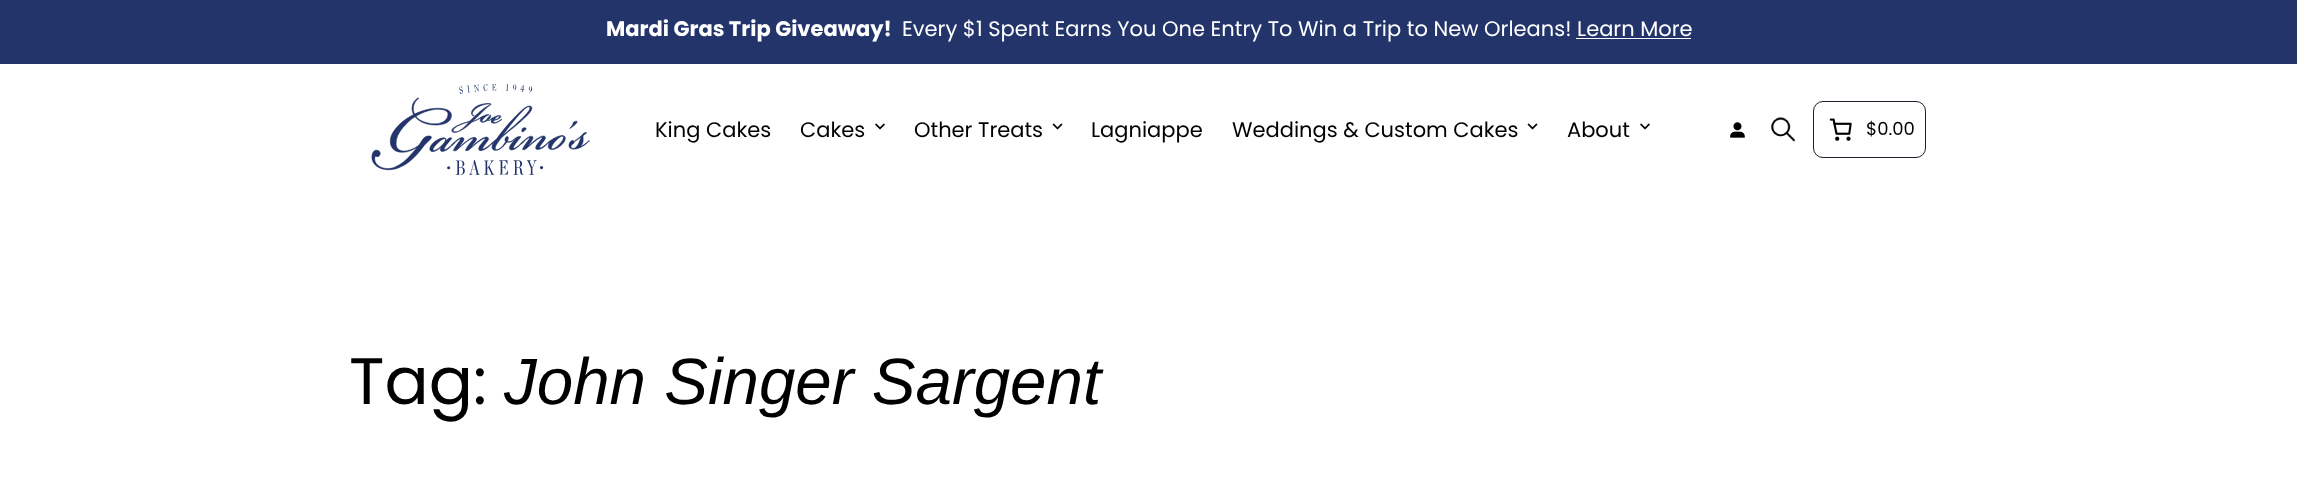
<!DOCTYPE html>
<meta charset="utf-8">
<style>body { margin: 0 } canvas { display: block }</style>
<canvas id="canvas" width="2297" height="496"></canvas>
<script type="module">
  const canvas = document.getElementById("canvas");
  const ctx = canvas.getContext("2d");
  ctx.miterLimit = 4;
  ctx.fontKerning = "normal";
  async function loadImage(src) {
    const img = new Image();
    img.src = src;
    await img.decode();
    return img;
  }

  ctx.fillStyle = "#ffffff";
  ctx.fillRect(0, 0, 2297, 496);
  ctx.fillStyle = "#23346b";
  ctx.fillRect(0, 0, 2297, 64);
  ctx.font = "bold 21px Poppins";
  ctx.fillStyle = "#ffffff";
  ctx.fillText("Mardi Gras Trip Giveaway!", 606, 36);
  ctx.font = "21px Poppins";
  ctx.fillText("Every $1 Spent Earns You One Entry To Win a Trip to New Orleans! Learn More", 902, 36);
  ctx.fillRect(1576, 38, 115, 1);
  ctx.drawImage(await loadImage("img1.png"), 371, 84, 219, 91);
  ctx.fillStyle = "#000000";
  ctx.fillText("King Cakes", 655, 137);
  ctx.fillText("Cakes", 800, 137);
  ctx.drawImage(await loadImage("img2.png"), 875, 123, 10, 7);
  ctx.fillText("Other Treats", 914, 137);
  ctx.drawImage(await loadImage("img3.png"), 1052, 123, 11, 7);
  ctx.fillText("Lagniappe", 1091, 137);
  ctx.fillText("Weddings & Custom Cakes", 1232, 137);
  ctx.drawImage(await loadImage("img3.png"), 1527, 123, 11, 7);
  ctx.fillText("About", 1567, 137);
  ctx.drawImage(await loadImage("img2.png"), 1640, 123, 10, 7);
  ctx.drawImage(await loadImage("img4.png"), 1730, 122, 15, 16);
  ctx.drawImage(await loadImage("img5.png"), 1771, 117, 24, 25);
  ctx.beginPath();
  ctx.roundRect(1813.5, 101.5, 112, 56, 9.5);
  ctx.strokeStyle = "#1a202c";
  ctx.stroke();
  ctx.drawImage(await loadImage("img6.png"), 1829, 118, 23, 23);
  ctx.font = "18px Poppins";
  ctx.fillText("$0.00", 1866, 135);
  ctx.font = "65.5px Poppins";
  ctx.fillText("Tag:", 349, 404);
  ctx.font = "italic 65.5px Liberation Sans";
  ctx.fillText("John Singer Sargent", 504, 404);
</script>
